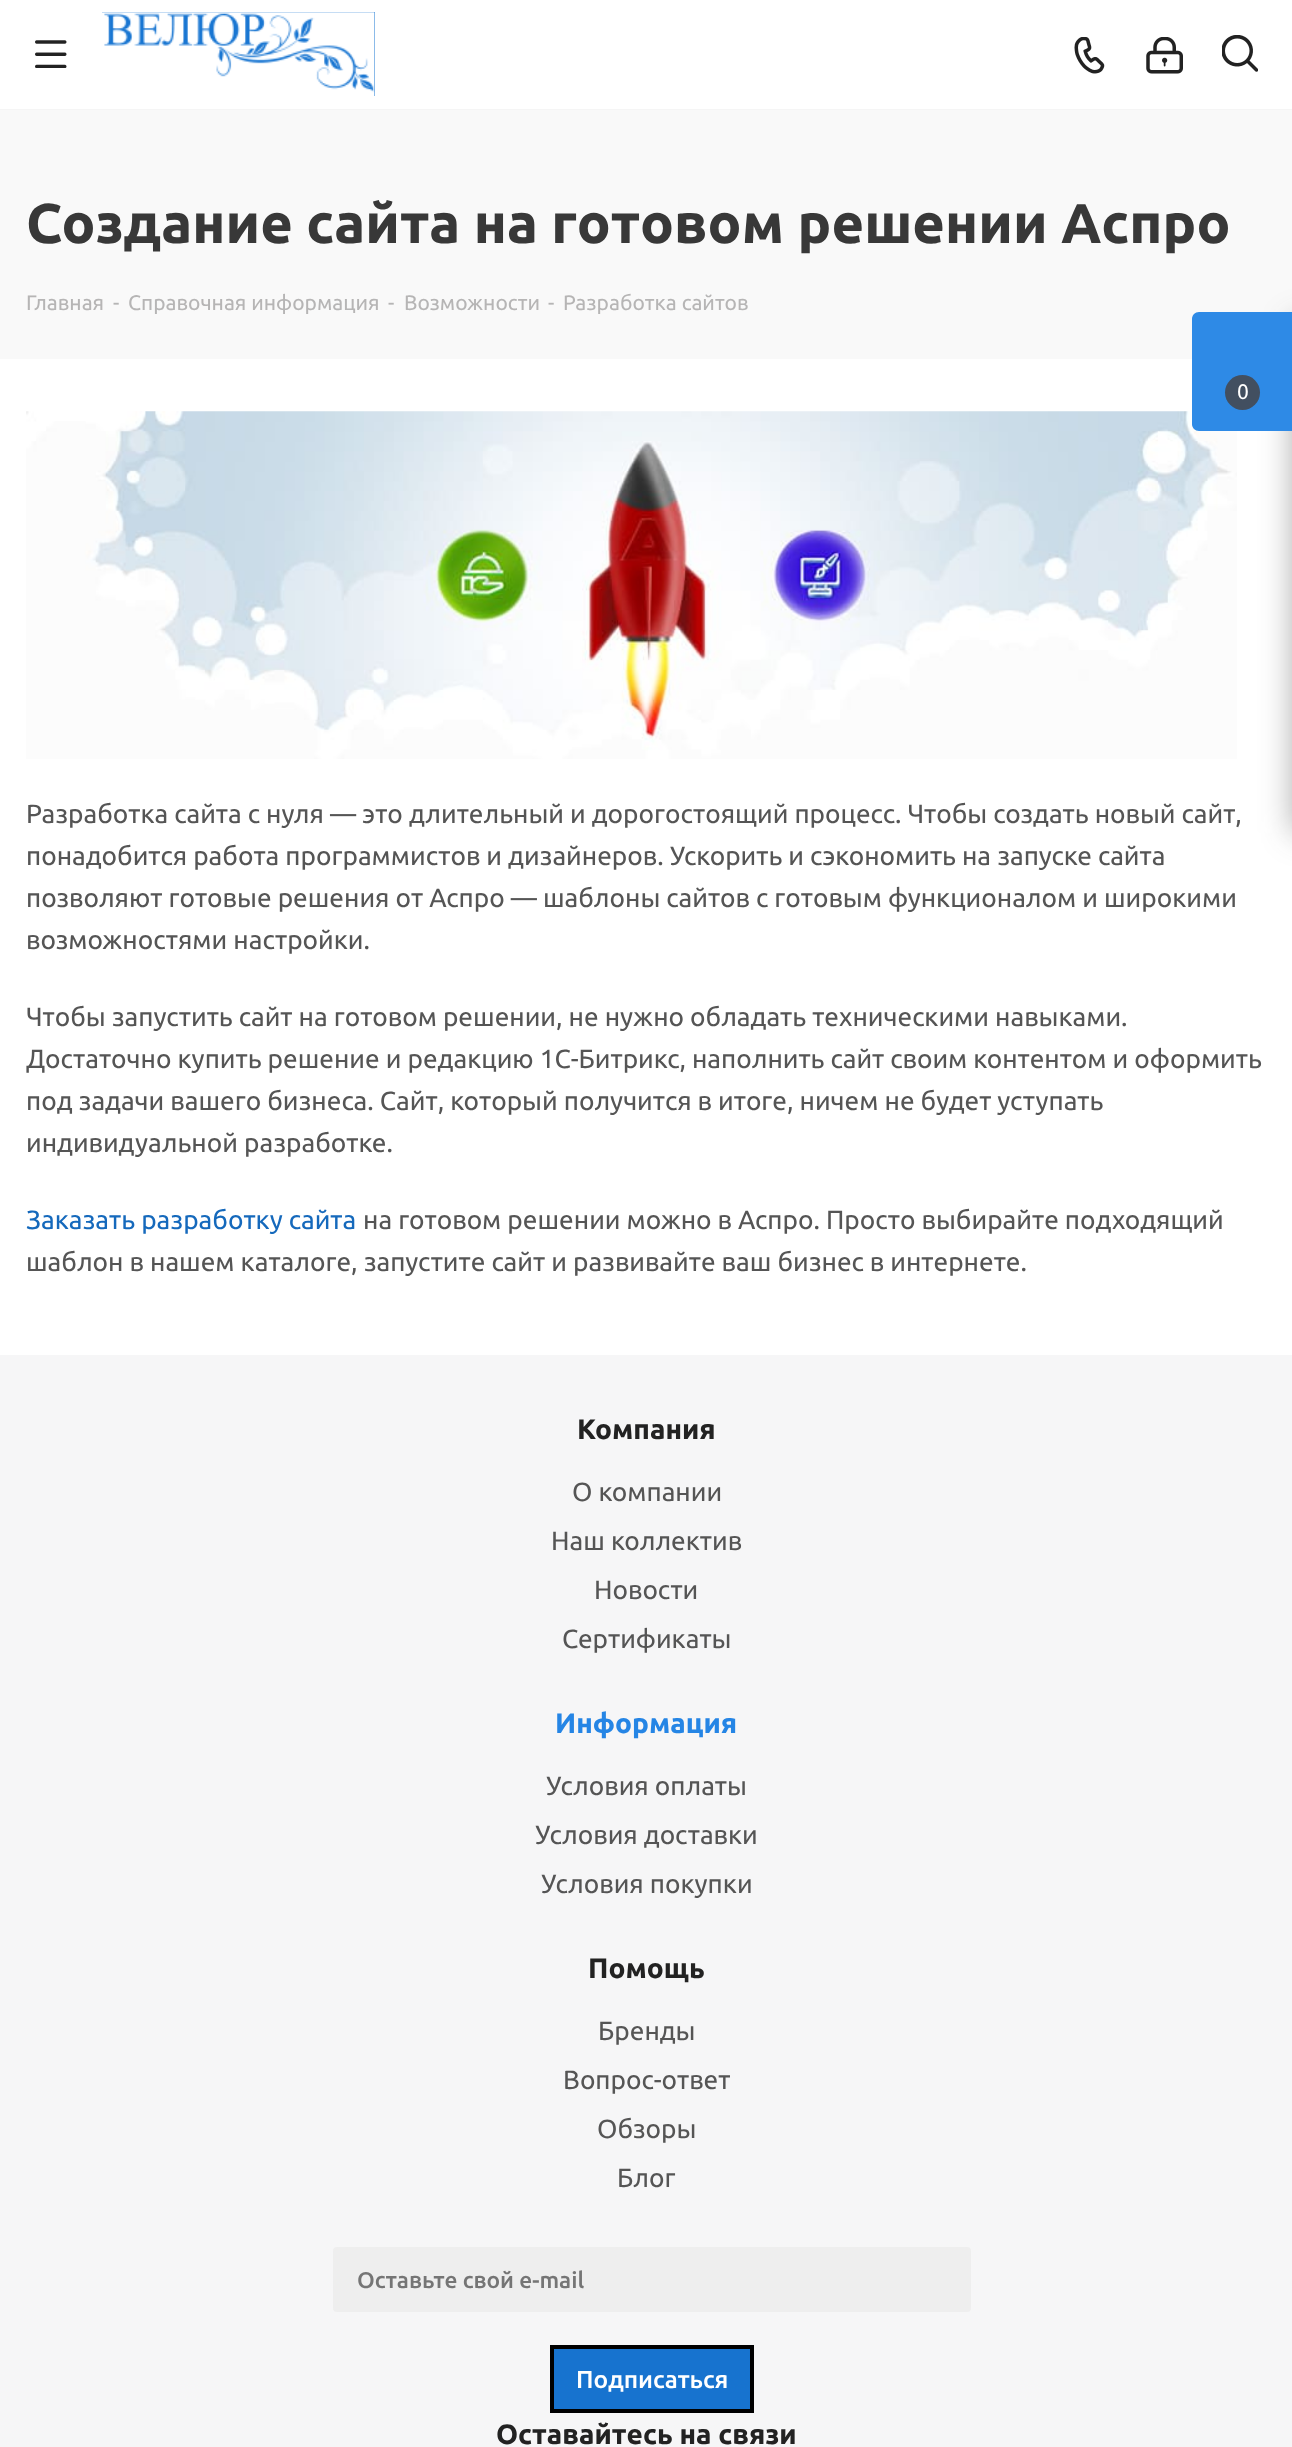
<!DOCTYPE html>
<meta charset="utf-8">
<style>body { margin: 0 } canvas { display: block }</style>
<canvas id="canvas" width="1292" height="2447"></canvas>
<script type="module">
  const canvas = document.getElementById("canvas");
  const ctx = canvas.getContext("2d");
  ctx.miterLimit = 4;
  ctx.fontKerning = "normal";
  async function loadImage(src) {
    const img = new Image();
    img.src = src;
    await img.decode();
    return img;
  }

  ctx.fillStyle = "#ffffff";
  ctx.fillRect(0, 0, 1292, 2447);
  ctx.fillStyle = "#f5f5f5";
  ctx.fillRect(0, 109, 1292, 1);
  ctx.drawImage(await loadImage("img1.png"), 35, 40, 32, 28);
  ctx.fillStyle = "#1976d2";
  ctx.fillRect(102, 12, 273, 84);
  ctx.drawImage(await loadImage("img2.png"), 102, 12, 273, 84);
  ctx.drawImage(await loadImage("img3.png"), 1074, 37, 31, 37);
  ctx.drawImage(await loadImage("img4.png"), 1146, 37, 37, 37);
  ctx.drawImage(await loadImage("img5.png"), 1222, 35, 36, 37);
  ctx.fillStyle = "#f9f9f9";
  ctx.fillRect(0, 110, 1292, 249);
  ctx.font = "bold 56px Ubuntu";
  ctx.fillStyle = "#383838";
  ctx.fillText("Создание сайта на готовом решении Аспро", 26, 243);
  ctx.font = "21px Ubuntu";
  ctx.fillStyle = "#b6b5b5";
  ctx.fillText("Главная", 26, 310);
  ctx.fillText("-", 113, 310);
  ctx.fillText("Справочная информация", 128, 310);
  ctx.fillText("-", 388, 310);
  ctx.fillText("Возможности", 404, 310);
  ctx.fillText("-", 548, 310);
  ctx.fillText("Разработка сайтов", 563, 310);
  ctx.drawImage(await loadImage("img6.png"), 26, 411, 1211, 348);
  ctx.font = "26.25px Ubuntu";
  ctx.fillStyle = "#555555";
  ctx.fillText("Разработка сайта с нуля — это длительный и дорогостоящий процесс. Чтобы создать новый сайт,", 26, 823);
  ctx.fillText("понадобится работа программистов и дизайнеров. Ускорить и сэкономить на запуске сайта", 26, 865);
  ctx.fillText("позволяют готовые решения от Аспро — шаблоны сайтов с готовым функционалом и широкими", 26, 907);
  ctx.fillText("возможностями настройки.", 26, 949);
  ctx.fillText("Чтобы запустить сайт на готовом решении, не нужно обладать техническими навыками.", 26, 1026);
  ctx.fillText("Достаточно купить решение и редакцию 1С-Битрикс, наполнить сайт своим контентом и оформить", 26, 1068);
  ctx.fillText("под задачи вашего бизнеса. Сайт, который получится в итоге, ничем не будет уступать", 26, 1110);
  ctx.fillText("индивидуальной разработке.", 26, 1152);
  ctx.fillStyle = "#1569bc";
  ctx.fillText("Заказать разработку сайта", 26, 1229);
  ctx.fillStyle = "#555555";
  ctx.fillText("на готовом решении можно в Аспро. Просто выбирайте подходящий", 363, 1229);
  ctx.fillText("шаблон в нашем каталоге, запустите сайт и развивайте ваш бизнес в интернете.", 26, 1271);
  ctx.fillStyle = "rgba(44, 44, 44, 0.4)";
  ctx.filter = "blur(16px)";
  ctx.beginPath();
  ctx.roundRect(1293, 322, 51, 511, 4);
  ctx.fill();
  ctx.filter = "none";
  ctx.fillStyle = "#2e8ae6";
  ctx.beginPath();
  ctx.moveTo(1199, 312);
  ctx.lineTo(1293, 312);
  ctx.lineTo(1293, 431);
  ctx.lineTo(1199, 431);
  ctx.bezierCurveTo(1195, 431, 1192, 428, 1192, 424);
  ctx.lineTo(1192, 319);
  ctx.bezierCurveTo(1192, 315, 1195, 312, 1199, 312);
  ctx.closePath();
  ctx.fill();
  ctx.fillStyle = "#424f60";
  ctx.beginPath();
  ctx.arc(1242.5, 392.5, 17.5, 0, Math.PI * 2);
  ctx.fill();
  ctx.font = "21px Ubuntu";
  ctx.fillStyle = "#ffffff";
  ctx.fillText("0", 1237, 399);
  ctx.fillStyle = "#f6f6f7";
  ctx.fillRect(0, 1355, 1292, 1092);
  ctx.font = "bold 28px Ubuntu";
  ctx.fillStyle = "#222222";
  ctx.fillText("Компания", 577, 1439);
  ctx.font = "26.25px Ubuntu";
  ctx.fillStyle = "#555555";
  ctx.fillText("О компании", 572, 1501);
  ctx.fillText("Наш коллектив", 551, 1550);
  ctx.fillText("Новости", 594, 1599);
  ctx.fillText("Сертификаты", 562, 1648);
  ctx.font = "bold 28px Ubuntu";
  ctx.fillStyle = "#2585e5";
  ctx.fillText("Информация", 555, 1733);
  ctx.font = "26.25px Ubuntu";
  ctx.fillStyle = "#555555";
  ctx.fillText("Условия оплаты", 546, 1795);
  ctx.fillText("Условия доставки", 535, 1844);
  ctx.fillText("Условия покупки", 541, 1893);
  ctx.font = "bold 28px Ubuntu";
  ctx.fillStyle = "#222222";
  ctx.fillText("Помощь", 588, 1978);
  ctx.font = "26.25px Ubuntu";
  ctx.fillStyle = "#555555";
  ctx.fillText("Бренды", 598, 2040);
  ctx.fillText("Вопрос-ответ", 563, 2089);
  ctx.fillText("Обзоры", 597, 2138);
  ctx.fillText("Блог", 617, 2187);
  ctx.fillStyle = "#eeeeee";
  ctx.beginPath();
  ctx.roundRect(333, 2247, 638, 65, 4);
  ctx.fill();
  ctx.font = "500 22.75px Ubuntu";
  ctx.fillStyle = "#757575";
  ctx.fillText("Оставьте свой e-mail", 357, 2288);
  ctx.fillStyle = "#1773cf";
  ctx.beginPath();
  ctx.rect(552, 2347, 200, 64);
  ctx.fill();
  ctx.strokeStyle = "#000000";
  ctx.lineWidth = 4;
  ctx.stroke();
  ctx.font = "500 24.5px Ubuntu";
  ctx.fillStyle = "#ffffff";
  ctx.fillText("Подписаться", 576, 2388);
  ctx.font = "bold 28px Ubuntu";
  ctx.fillStyle = "#222222";
  ctx.fillText("Оставайтесь на связи", 496, 2444);
</script>
